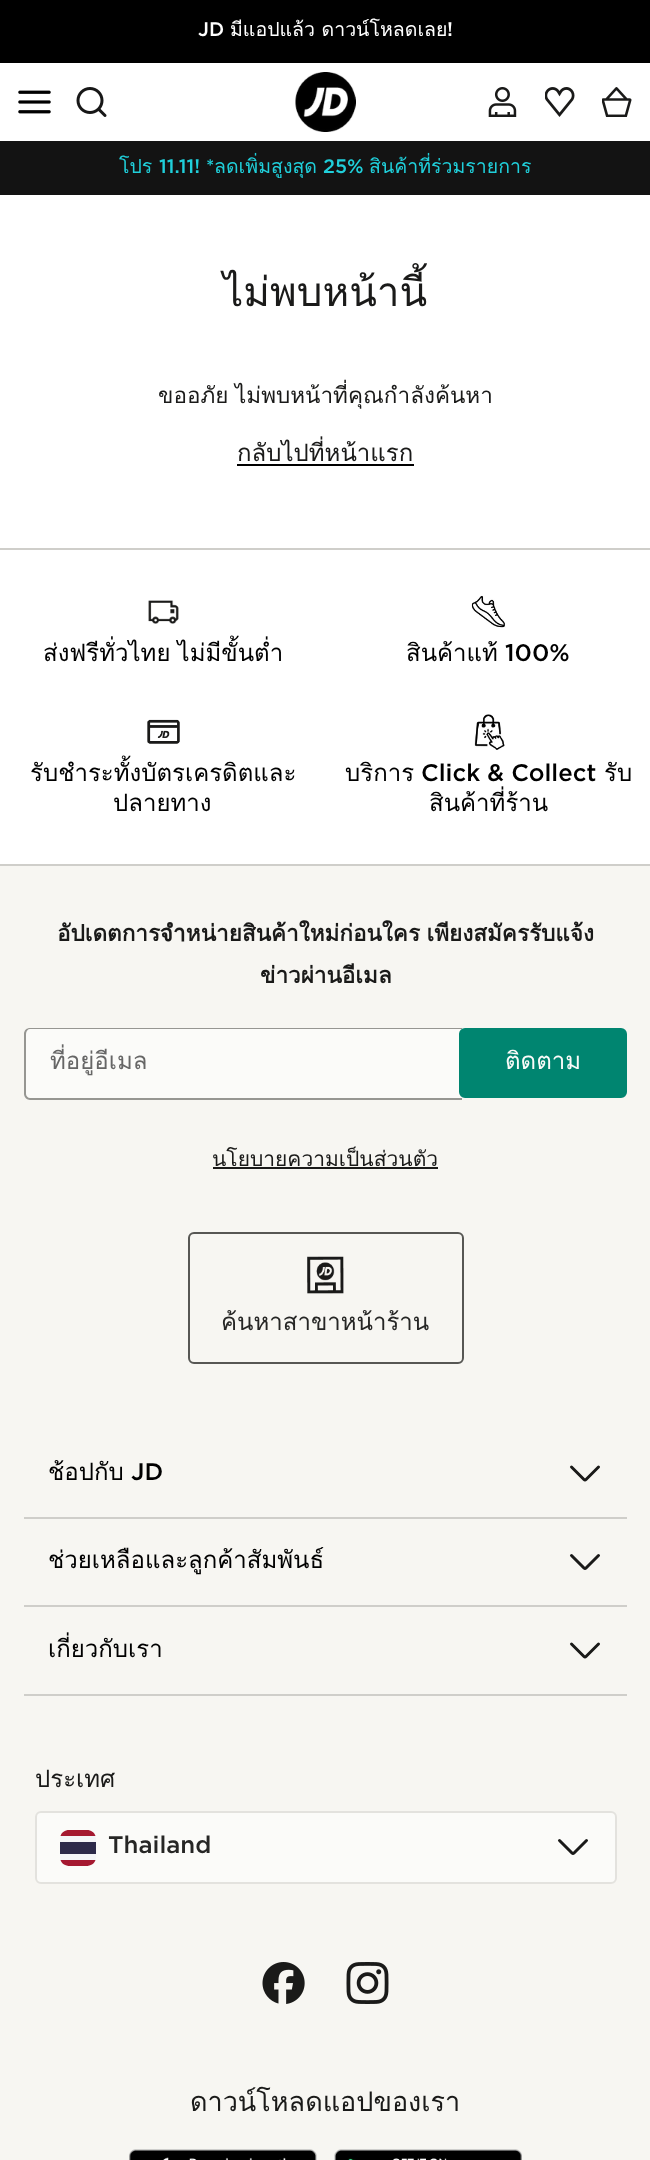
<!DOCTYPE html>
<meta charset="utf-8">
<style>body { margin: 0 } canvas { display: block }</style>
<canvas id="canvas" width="650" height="2160"></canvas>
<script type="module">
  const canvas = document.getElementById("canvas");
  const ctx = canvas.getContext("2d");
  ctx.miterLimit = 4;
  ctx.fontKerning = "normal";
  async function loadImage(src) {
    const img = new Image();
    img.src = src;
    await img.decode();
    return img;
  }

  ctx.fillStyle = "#ffffff";
  ctx.fillRect(0, 0, 650, 2160);
  ctx.fillStyle = "#000000";
  ctx.fillRect(0, 0, 650, 63);
  ctx.font = "500 19.5px Gotham";
  ctx.fillStyle = "#ffffff";
  ctx.fillText("JD", 198, 36);
  ctx.font = "19.5px Loma";
  ctx.fillText("มีแอปแล้ว ดาวน์โหลดเลย", 230, 36);
  ctx.font = "500 19.5px Gotham";
  ctx.fillText("!", 447, 36);
  ctx.drawImage(await loadImage("img1.png"), 18, 90, 33, 24);
  ctx.drawImage(await loadImage("img2.png"), 76, 87, 31, 30);
  ctx.drawImage(await loadImage("img3.png"), 295, 72, 61, 60);
  ctx.drawImage(await loadImage("img4.png"), 488, 87, 29, 30);
  ctx.drawImage(await loadImage("img5.png"), 545, 87, 30, 30);
  ctx.drawImage(await loadImage("img6.png"), 602, 87, 30, 30);
  ctx.fillStyle = "#131313";
  ctx.fillRect(0, 141, 650, 54);
  ctx.font = "19.5px Loma";
  ctx.fillStyle = "#20cfda";
  ctx.fillText("โปร", 119, 173);
  ctx.font = "500 19.5px Gotham";
  ctx.fillText("11.11! *", 159, 173);
  ctx.font = "19.5px Loma";
  ctx.fillText("ลดเพิ่มสูงสุด", 214, 173);
  ctx.font = "500 19.5px Gotham";
  ctx.fillText("25%", 323, 173);
  ctx.font = "19.5px Loma";
  ctx.fillText("สินค้าที่ร่วมรายการ", 369, 173);
  ctx.font = "40.5px Loma";
  ctx.fillStyle = "#1a1a19";
  ctx.fillText("ไม่พบหน้านี้", 223, 306);
  ctx.wordSpacing = "-1px";
  ctx.font = "22.5px Loma";
  ctx.fillText("ขออภัย ไม่พบหน้าที่คุณกำลังค้นหา", 158, 403);
  ctx.wordSpacing = "0px";
  ctx.font = "24px Loma";
  ctx.fillText("กลับไปที่หน้าแรก", 237, 461);
  ctx.fillStyle = "#000000";
  ctx.fillRect(237, 464, 177, 2);
  ctx.fillStyle = "#cfceca";
  ctx.fillRect(0, 548, 650, 2);
  ctx.drawImage(await loadImage("img7.png"), 148, 600, 31, 24);
  ctx.wordSpacing = "-1px";
  ctx.fillStyle = "#000000";
  ctx.fillText("ส่งฟรีทั่วไทย ไม่มีขั้นต่ำ", 43, 661);
  ctx.drawImage(await loadImage("img8.png"), 471, 595, 35, 33);
  ctx.wordSpacing = "0px";
  ctx.fillText("สินค้าแท้", 406, 661);
  ctx.font = "500 24px Gotham";
  ctx.fillText("100%", 505, 661);
  ctx.drawImage(await loadImage("img9.png"), 147, 719, 33, 25);
  ctx.font = "24px Loma";
  ctx.fillText("รับชำระทั้งบัตรเครดิตและ", 30, 781);
  ctx.fillText("ปลายทาง", 113, 811);
  ctx.drawImage(await loadImage("img10.png"), 474, 714, 31, 36);
  ctx.fillText("บริการ", 345, 781);
  ctx.font = "500 24px Gotham";
  ctx.fillText("Click & Collect", 421, 781);
  ctx.font = "24px Loma";
  ctx.fillText("รับ", 604, 781);
  ctx.fillText("สินค้าที่ร้าน", 429, 811);
  ctx.fillStyle = "#f7f6f2";
  ctx.fillRect(0, 866, 650, 1294);
  ctx.fillStyle = "#cfceca";
  ctx.fillRect(0, 864, 650, 2);
  ctx.wordSpacing = "-1px";
  ctx.font = "bold 22.5px Loma";
  ctx.fillStyle = "#1a1a19";
  ctx.fillText("อัปเดตการจำหน่ายสินค้าใหม่ก่อนใคร เพียงสมัครรับแจ้ง", 57, 941);
  ctx.wordSpacing = "0px";
  ctx.fillText("ข่าวผ่านอีเมล", 260, 983);
  ctx.fillStyle = "#fbfbf9";
  ctx.beginPath();
  ctx.roundRect(24, 1028, 438, 72, [6, 0, 0, 6]);
  ctx.fill();
  ctx.fillStyle = "#969692";
  ctx.beginPath();
  ctx.moveTo(30, 1028);
  ctx.lineTo(462, 1028);
  ctx.lineTo(462, 1100);
  ctx.lineTo(30, 1100);
  ctx.bezierCurveTo(27, 1100, 24, 1097, 24, 1094);
  ctx.lineTo(24, 1034);
  ctx.bezierCurveTo(24, 1030, 27, 1028, 30, 1028);
  ctx.closePath();
  ctx.moveTo(30, 1029);
  ctx.lineTo(462, 1029);
  ctx.lineTo(462, 1098);
  ctx.lineTo(30, 1098);
  ctx.bezierCurveTo(28, 1098, 26, 1096, 26, 1094);
  ctx.lineTo(26, 1034);
  ctx.bezierCurveTo(26, 1031, 28, 1029, 30, 1029);
  ctx.closePath();
  ctx.fill("evenodd");
  ctx.save();
  ctx.beginPath();
  ctx.rect(50, 1043, 388, 37);
  ctx.clip();
  ctx.font = "24px Loma";
  ctx.fillStyle = "#666666";
  ctx.fillText("ที่อยู่อีเมล", 50, 1069);
  ctx.restore();
  ctx.fillStyle = "#008570";
  ctx.beginPath();
  ctx.roundRect(460, 1029, 166, 68, 5);
  ctx.fill();
  ctx.strokeStyle = "#008570";
  ctx.lineWidth = 2;
  ctx.stroke();
  ctx.font = "24px Loma";
  ctx.fillStyle = "#fbfbf9";
  ctx.fillText("ติดตาม", 505, 1069);
  ctx.font = "21px Loma";
  ctx.fillStyle = "#1a1a19";
  ctx.fillText("นโยบายความเป็นส่วนตัว", 212, 1166);
  ctx.fillRect(213, 1167, 225, 2);
  ctx.beginPath();
  ctx.roundRect(189, 1233, 274, 130, 5);
  ctx.strokeStyle = "#575754";
  ctx.stroke();
  ctx.drawImage(await loadImage("img11.png"), 307, 1256, 37, 38);
  ctx.font = "24px Loma";
  ctx.fillStyle = "#262625";
  ctx.fillText("ค้นหาสาขาหน้าร้าน", 221, 1330);
  ctx.fillStyle = "#cfceca";
  ctx.fillRect(24, 1517, 603, 2);
  ctx.fillStyle = "#000000";
  ctx.fillText("ช้อปกับ", 48, 1480);
  ctx.font = "500 24px Gotham";
  ctx.fillText("JD", 131, 1480);
  ctx.beginPath();
  ctx.moveTo(571.5, 1467);
  ctx.lineTo(584, 1479.5);
  ctx.bezierCurveTo(584.5, 1480, 585.5, 1480, 586, 1479.5);
  ctx.lineTo(598.5, 1467);
  ctx.strokeStyle = "#1a1a19";
  ctx.lineWidth = 3;
  ctx.lineCap = "round";
  ctx.stroke();
  ctx.fillStyle = "#cfceca";
  ctx.fillRect(24, 1605, 603, 2);
  ctx.font = "24px Loma";
  ctx.fillStyle = "#000000";
  ctx.fillText("ช่วยเหลือและลูกค้าสัมพันธ์", 48, 1568);
  ctx.beginPath();
  ctx.moveTo(571.5, 1555.5);
  ctx.lineTo(584, 1568);
  ctx.bezierCurveTo(584.5, 1568.5, 585.5, 1568.5, 586, 1568);
  ctx.lineTo(598.5, 1555.5);
  ctx.stroke();
  ctx.fillStyle = "#cfceca";
  ctx.fillRect(24, 1694, 603, 2);
  ctx.fillStyle = "#000000";
  ctx.fillText("เกี่ยวกับเรา", 48, 1657);
  ctx.beginPath();
  ctx.moveTo(571.5, 1644);
  ctx.lineTo(584, 1656.5);
  ctx.bezierCurveTo(584.5, 1657, 585.5, 1657, 586, 1656.5);
  ctx.lineTo(598.5, 1644);
  ctx.stroke();
  ctx.fillStyle = "#1a1a19";
  ctx.fillText("ประเทศ", 35, 1787);
  ctx.fillStyle = "#fbfbf9";
  ctx.beginPath();
  ctx.roundRect(36, 1812, 580, 71, 5);
  ctx.fill();
  ctx.strokeStyle = "#e3e2de";
  ctx.lineWidth = 2;
  ctx.stroke();
  ctx.fillStyle = "#f4f5f8";
  ctx.beginPath();
  ctx.roundRect(60, 1830, 36, 36, 9);
  ctx.fill();
  ctx.fillStyle = "#2d2a4a";
  ctx.fillRect(60, 1842, 36, 12);
  ctx.fillStyle = "#a51931";
  ctx.beginPath();
  ctx.moveTo(69, 1830);
  ctx.bezierCurveTo(65, 1830, 61.5, 1832.5, 60.5, 1836);
  ctx.lineTo(95.5, 1836);
  ctx.bezierCurveTo(94.5, 1832.5, 91, 1830, 87, 1830);
  ctx.closePath();
  ctx.moveTo(95.5, 1860);
  ctx.lineTo(60.5, 1860);
  ctx.bezierCurveTo(63, 1867.5, 71.5, 1866, 78, 1866);
  ctx.bezierCurveTo(84.5, 1866, 93, 1867.5, 95.5, 1860);
  ctx.closePath();
  ctx.fill("evenodd");
  ctx.font = "500 24px Gotham";
  ctx.fillStyle = "#262625";
  ctx.fillText("Thailand", 108, 1853);
  ctx.beginPath();
  ctx.moveTo(559.5, 1840.5);
  ctx.lineTo(572, 1853);
  ctx.bezierCurveTo(572.5, 1853.5, 573.5, 1853.5, 574, 1853);
  ctx.lineTo(586.5, 1840.5);
  ctx.strokeStyle = "#1a1a19";
  ctx.lineWidth = 3;
  ctx.stroke();
  ctx.drawImage(await loadImage("img12.png"), 262, 1962, 43, 42);
  ctx.drawImage(await loadImage("img13.png"), 346, 1962, 43, 42);
  ctx.font = "27px Loma";
  ctx.fillStyle = "#1a1a19";
  ctx.fillText("ดาวน์โหลดแอปของเรา", 190, 2111);
  ctx.drawImage(await loadImage("img14.png"), 129, 2149, 188, 11);
  ctx.drawImage(await loadImage("img15.png"), 334, 2149, 188, 11);
</script>
